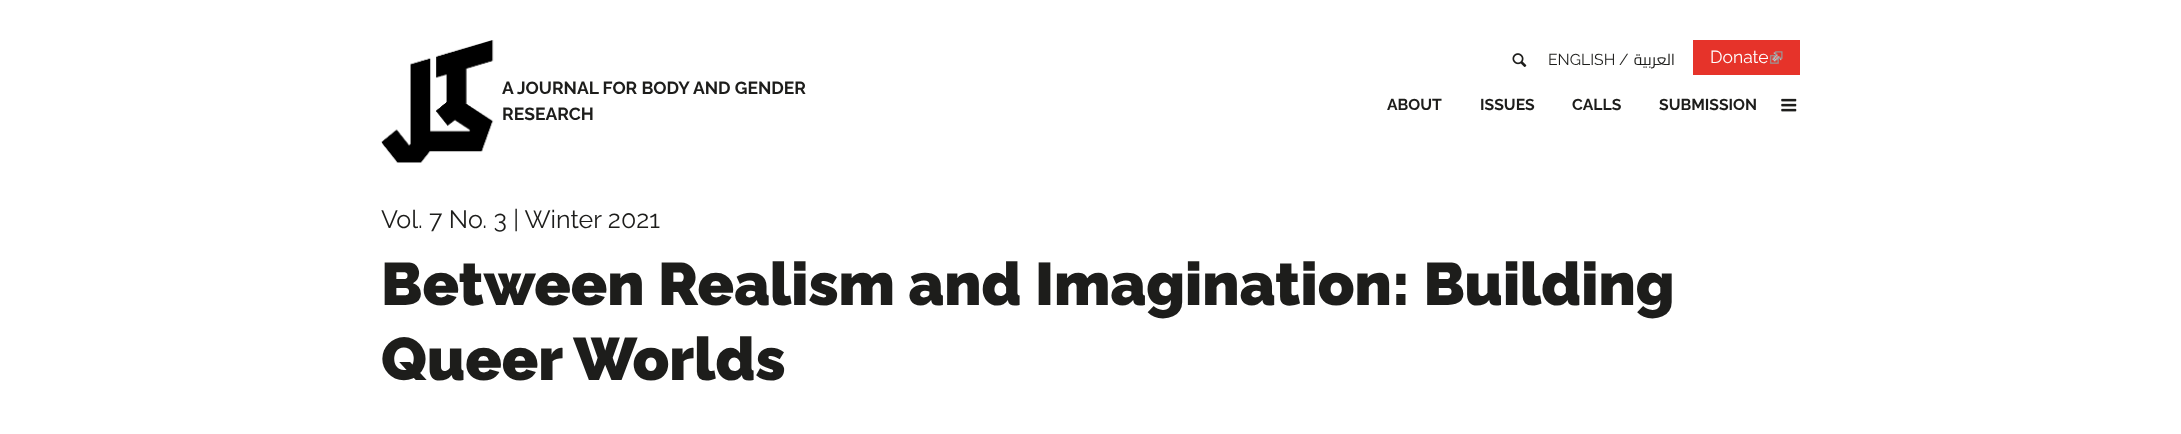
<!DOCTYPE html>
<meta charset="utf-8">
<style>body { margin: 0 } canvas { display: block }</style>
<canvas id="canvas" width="2181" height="434"></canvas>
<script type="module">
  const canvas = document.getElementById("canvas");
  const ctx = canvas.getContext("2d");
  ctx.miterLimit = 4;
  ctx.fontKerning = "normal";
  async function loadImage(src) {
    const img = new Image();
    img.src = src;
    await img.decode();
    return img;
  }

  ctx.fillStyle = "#ffffff";
  ctx.fillRect(0, 0, 2181, 434);
  ctx.drawImage(await loadImage("img1.png"), 381, 40, 113, 123);
  ctx.font = "bold 17.5px Raleway";
  ctx.fillStyle = "#1d1d1b";
  ctx.fillText("A JOURNAL FOR BODY AND GENDER", 502, 94);
  ctx.fillText("RESEARCH", 502, 120);
  ctx.drawImage(await loadImage("img2.png"), 1512, 53, 15, 14);
  ctx.font = "15.75px Raleway";
  ctx.fillText("ENGLISH", 1548, 65);
  ctx.fillText("/", 1619, 65);
  ctx.direction = "rtl";
  ctx.font = "15.75px Cairo";
  ctx.fillText("العربية", 1675, 65);
  ctx.fillStyle = "#e6332a";
  ctx.fillRect(1693, 40, 107, 35);
  ctx.direction = "ltr";
  ctx.font = "17.5px Raleway";
  ctx.fillStyle = "#ffffff";
  ctx.fillText("Donate", 1710, 63);
  ctx.drawImage(await loadImage("img3.png"), 1769, 51, 14, 13);
  ctx.font = "bold 15.75px Raleway";
  ctx.fillStyle = "#1d1d1b";
  ctx.fillText("ABOUT", 1387, 110);
  ctx.fillText("ISSUES", 1480, 110);
  ctx.fillText("CALLS", 1572, 110);
  ctx.fillText("SUBMISSION", 1659, 110);
  ctx.drawImage(await loadImage("img4.png"), 1781, 98, 16, 14);
  ctx.font = "25px Raleway";
  ctx.fillText("Vol. 7 No. 3 | Winter 2021", 381, 228);
  ctx.font = "900 60px Raleway";
  ctx.fillText("Between Realism and Imagination: Building", 381, 305);
  ctx.fillText("Queer Worlds", 381, 380);
</script>
